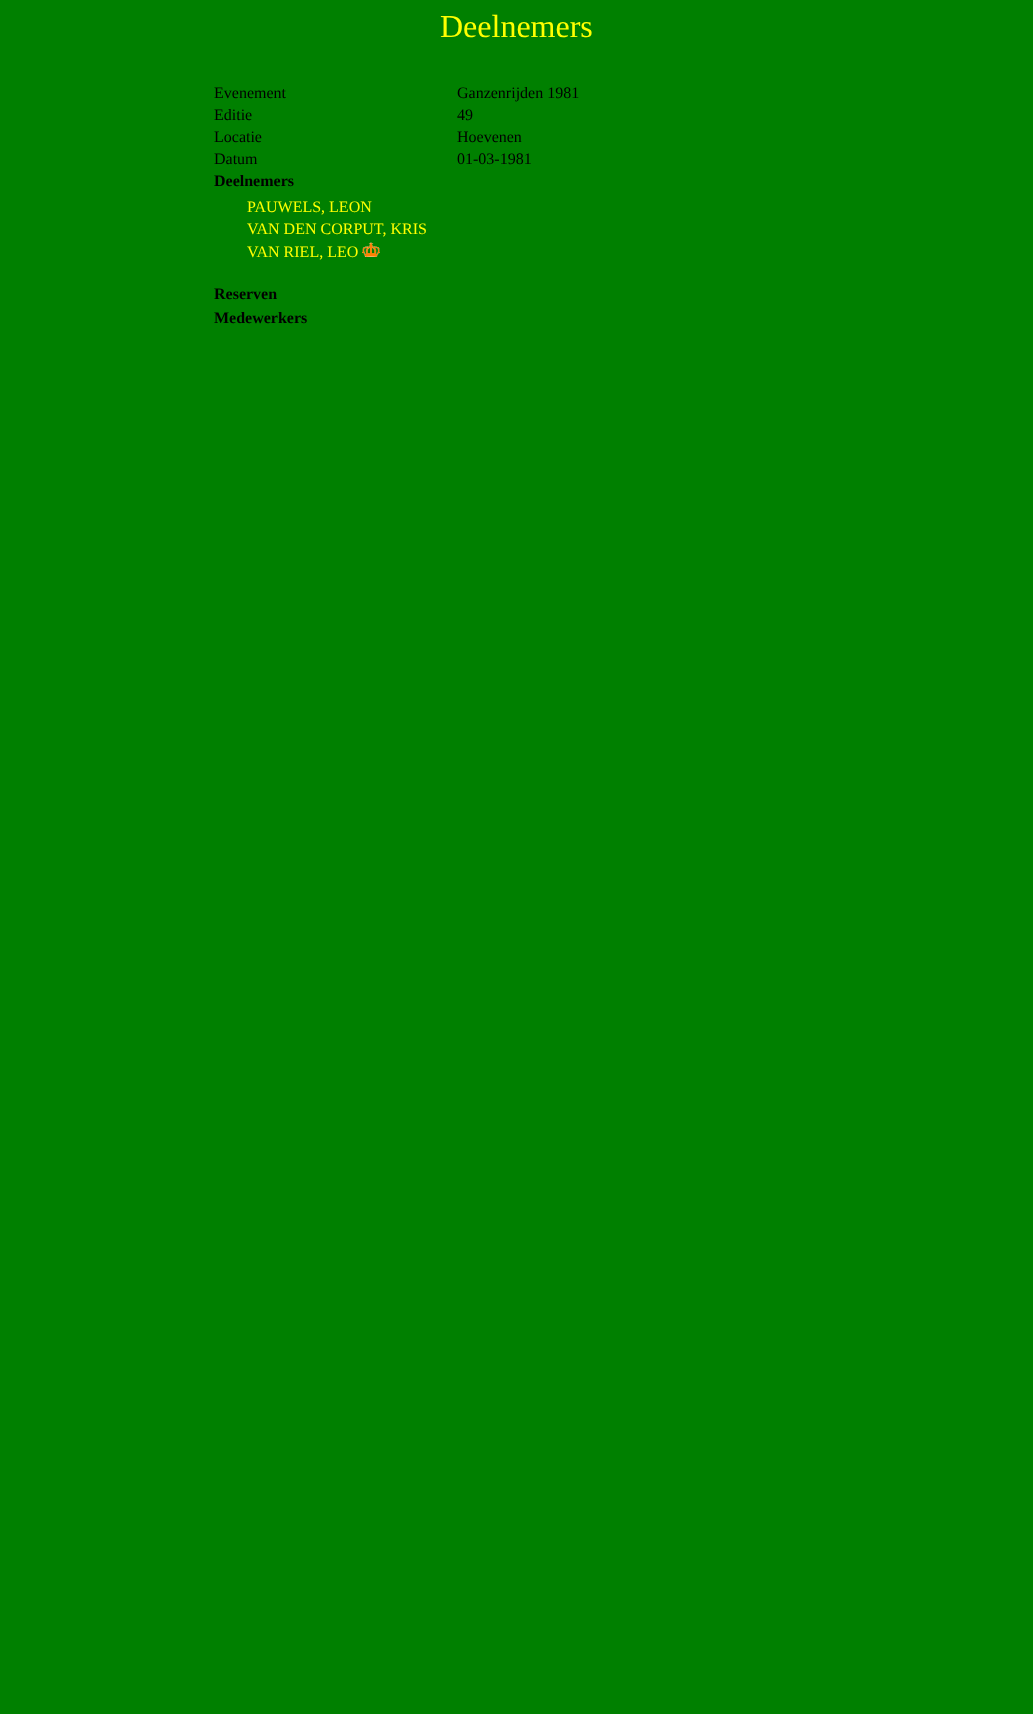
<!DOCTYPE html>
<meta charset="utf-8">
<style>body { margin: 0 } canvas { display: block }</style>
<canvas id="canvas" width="1033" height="1714"></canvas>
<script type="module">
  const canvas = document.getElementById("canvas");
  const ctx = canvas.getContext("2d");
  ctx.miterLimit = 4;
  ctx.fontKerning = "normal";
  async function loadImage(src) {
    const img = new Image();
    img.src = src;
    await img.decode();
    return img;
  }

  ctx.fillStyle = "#008000";
  ctx.fillRect(0, 0, 1033, 1714);
  ctx.font = "32px Liberation Serif";
  ctx.fillStyle = "#ffff00";
  ctx.fillText("Deelnemers", 440, 37);
  ctx.font = "16px Liberation Serif";
  ctx.fillStyle = "#000000";
  ctx.fillText("Evenement", 214, 98);
  ctx.fillText("Ganzenrijden 1981", 457, 98);
  ctx.fillText("Editie", 214, 120);
  ctx.fillText("49", 457, 120);
  ctx.fillText("Locatie", 214, 142);
  ctx.fillText("Hoevenen", 457, 142);
  ctx.fillText("Datum", 214, 164);
  ctx.fillText("01-03-1981", 457, 164);
  ctx.font = "bold 16px Liberation Serif";
  ctx.fillText("Deelnemers", 214, 186);
  ctx.font = "16px Liberation Serif";
  ctx.fillStyle = "#ffff00";
  ctx.fillText("PAUWELS, LEON", 247, 212);
  ctx.fillText("VAN DEN CORPUT, KRIS", 247, 234);
  ctx.fillText("VAN RIEL, LEO", 247, 257);
  ctx.drawImage(await loadImage("img1.png"), 362, 242, 18, 15);
  ctx.font = "bold 16px Liberation Serif";
  ctx.fillStyle = "#000000";
  ctx.fillText("Reserven", 214, 299);
  ctx.fillText("Medewerkers", 214, 323);
</script>
